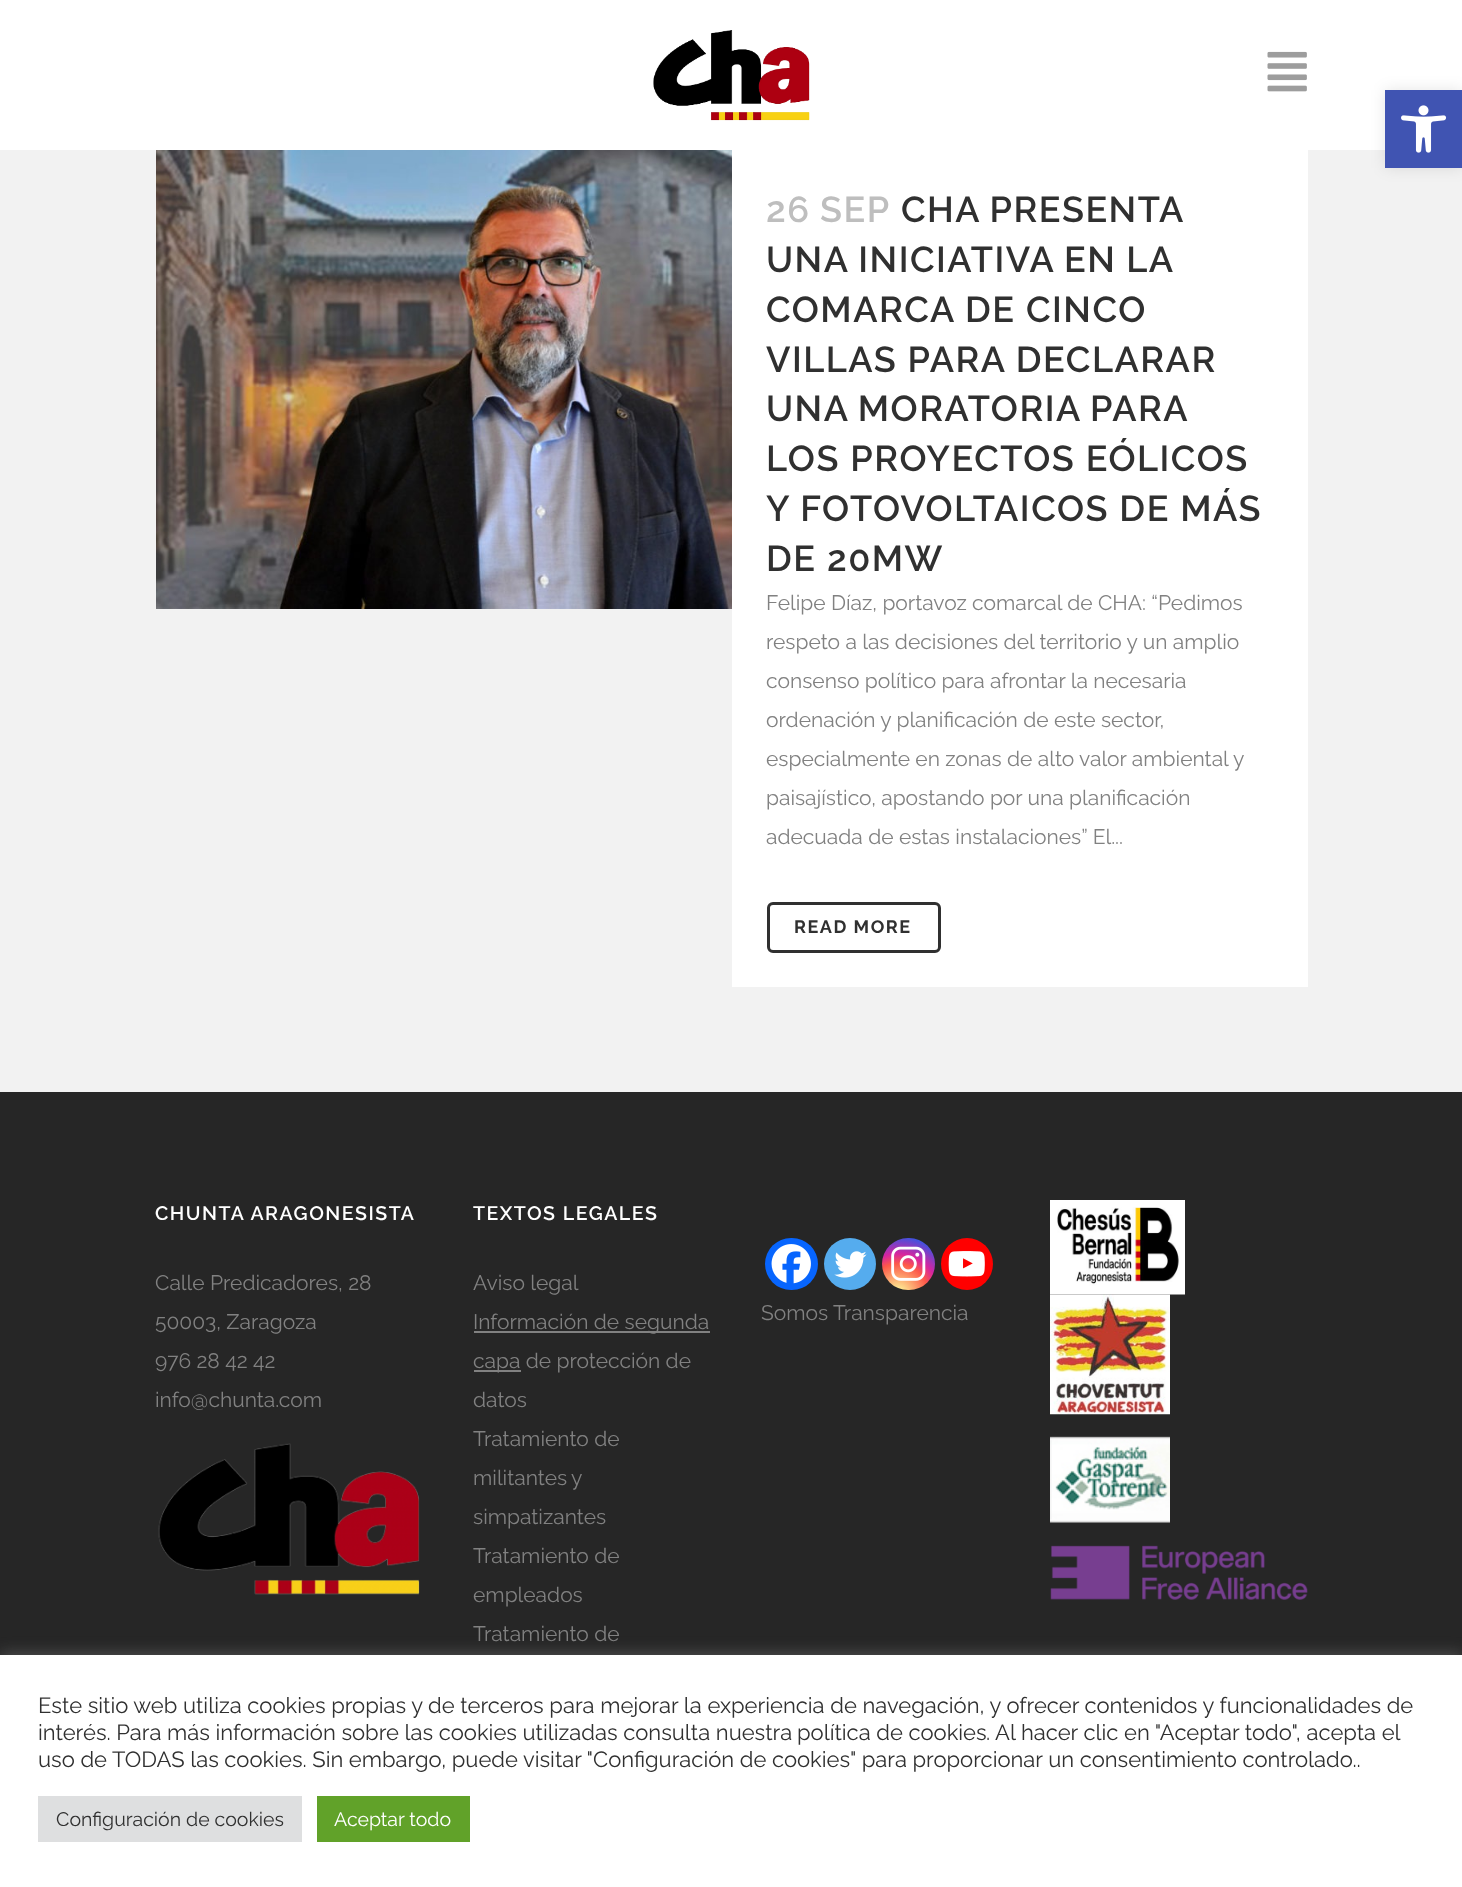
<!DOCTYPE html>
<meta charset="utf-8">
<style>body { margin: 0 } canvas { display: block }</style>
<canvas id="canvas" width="1462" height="1887"></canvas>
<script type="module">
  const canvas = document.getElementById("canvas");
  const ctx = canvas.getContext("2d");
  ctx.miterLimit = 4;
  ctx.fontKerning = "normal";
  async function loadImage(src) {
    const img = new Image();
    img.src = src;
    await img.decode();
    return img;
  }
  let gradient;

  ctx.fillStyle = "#f2f2f2";
  ctx.fillRect(0, 0, 1462, 1887);
  ctx.fillStyle = "#ffffff";
  ctx.fillRect(0, 0, 1462, 150);
  ctx.fillStyle = "rgba(0, 0, 0, 0.1)";
  ctx.filter = "blur(7.5px)";
  ctx.beginPath();
  ctx.rect(1385, 90, 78, 78);
  ctx.fill();
  ctx.filter = "none";
  ctx.fillStyle = "#4054b2";
  ctx.fillRect(1385, 90, 77, 78);
  ctx.drawImage(await loadImage("img1.png"), 1401, 105, 46, 48);
  ctx.drawImage(await loadImage("img2.png"), 653, 30, 157, 91);
  ctx.drawImage(await loadImage("img3.png"), 1267, 51, 40, 41);
  ctx.drawImage(await loadImage("img4.png"), 156, 150, 576, 459);
  ctx.fillStyle = "#ffffff";
  ctx.fillRect(732, 150, 576, 837);
  ctx.letterSpacing = "1.5px";
  ctx.wordSpacing = "-1px";
  ctx.font = "600 36px Raleway";
  ctx.fillStyle = "#bebebe";
  ctx.fillText("26 SEP", 766, 222);
  ctx.fillStyle = "#303030";
  ctx.fillText("CHA PRESENTA", 901, 222);
  ctx.wordSpacing = "-0.5px";
  ctx.fillText("UNA INICIATIVA EN LA", 766, 272);
  ctx.wordSpacing = "0px";
  ctx.fillText("COMARCA DE CINCO", 766, 322);
  ctx.fillText("VILLAS PARA DECLARAR", 766, 372);
  ctx.wordSpacing = "-1px";
  ctx.fillText("UNA MORATORIA PARA", 766, 421);
  ctx.wordSpacing = "0px";
  ctx.fillText("LOS PROYECTOS EÓLICOS", 766, 471);
  ctx.fillText("Y FOTOVOLTAICOS DE MÁS", 766, 521);
  ctx.fillText("DE 20MW", 766, 571);
  ctx.letterSpacing = "0px";
  ctx.font = "21px Raleway";
  ctx.fillStyle = "#818181";
  ctx.fillText("Felipe Díaz, portavoz comarcal de CHA: “Pedimos", 766, 610);
  ctx.fillText("respeto a las decisiones del territorio y un amplio", 766, 649);
  ctx.fillText("consenso político para afrontar la necesaria", 766, 688);
  ctx.fillText("ordenación y planificación de este sector,", 766, 727);
  ctx.fillText("especialmente en zonas de alto valor ambiental y", 766, 766);
  ctx.fillText("paisajístico, apostando por una planificación", 766, 805);
  ctx.fillText("adecuada de estas instalaciones” El...", 766, 844);
  ctx.beginPath();
  ctx.roundRect(768.5, 903.5, 171, 48, 4.5);
  ctx.strokeStyle = "#303030";
  ctx.lineWidth = 3;
  ctx.stroke();
  ctx.letterSpacing = "1.5px";
  ctx.font = "bold 18px Raleway";
  ctx.fillStyle = "#303030";
  ctx.fillText("READ MORE", 794, 933);
  ctx.fillStyle = "#262626";
  ctx.fillRect(0, 1092, 1462, 563);
  ctx.font = "600 19.5px Raleway";
  ctx.fillStyle = "#ffffff";
  ctx.fillText("CHUNTA ARAGONESISTA", 155, 1220);
  ctx.letterSpacing = "0px";
  ctx.font = "21px Raleway";
  ctx.fillStyle = "#818181";
  ctx.fillText("Calle Predicadores, 28", 155, 1290);
  ctx.fillText("50003, Zaragoza", 155, 1329);
  ctx.fillText("976 28 42 42", 155, 1368);
  ctx.fillText("info@chunta.com", 155, 1407);
  ctx.drawImage(await loadImage("img5.png"), 158, 1443, 262, 152);
  ctx.letterSpacing = "1.5px";
  ctx.font = "600 19.5px Raleway";
  ctx.fillStyle = "#ffffff";
  ctx.fillText("TEXTOS LEGALES", 473, 1220);
  ctx.letterSpacing = "0px";
  ctx.font = "21px Raleway";
  ctx.fillStyle = "#818181";
  ctx.fillText("Aviso legal", 473, 1290);
  ctx.fillRect(474, 1331, 236, 2);
  ctx.fillText("Información de segunda", 473, 1329);
  ctx.fillRect(474, 1370, 47, 2);
  ctx.fillText("capa de protección de", 473, 1368);
  ctx.fillText("datos", 473, 1407);
  ctx.fillText("Tratamiento de", 473, 1446);
  ctx.wordSpacing = "-1px";
  ctx.fillText("militantes y", 473, 1485);
  ctx.wordSpacing = "0px";
  ctx.fillText("simpatizantes", 473, 1524);
  ctx.fillText("Tratamiento de", 473, 1563);
  ctx.fillText("empleados", 473, 1602);
  ctx.fillText("Tratamiento de", 473, 1641);
  ctx.fillStyle = "#0765fe";
  ctx.beginPath();
  ctx.roundRect(765, 1238, 53, 52, 26);
  ctx.fill();
  ctx.drawImage(await loadImage("img6.png"), 771, 1244, 40, 40);
  ctx.fillStyle = "#55acee";
  ctx.beginPath();
  ctx.arc(850, 1264, 26, 0, Math.PI * 2);
  ctx.fill();
  ctx.drawImage(await loadImage("img7.png"), 834, 1251, 33, 27);
  gradient = ctx.createRadialGradient(898, 1294, 0, 898, 1294, 67);
  gradient.addColorStop(0, "#fdf497");
  gradient.addColorStop(0.05, "#fdf497");
  gradient.addColorStop(0.45, "#fd5949");
  gradient.addColorStop(0.6, "#d6249f");
  gradient.addColorStop(0.9, "#285aeb");
  ctx.fillStyle = gradient;
  ctx.beginPath();
  ctx.roundRect(882, 1238, 53, 52, 26);
  ctx.fill();
  ctx.drawImage(await loadImage("img8.png"), 891, 1246, 35, 35);
  ctx.fillStyle = "#ff0000";
  ctx.beginPath();
  ctx.arc(967, 1264, 26, 0, Math.PI * 2);
  ctx.fill();
  ctx.drawImage(await loadImage("img9.png"), 948, 1251, 37, 26);
  ctx.fillStyle = "#818181";
  ctx.fillText("Somos Transparencia", 761, 1320);
  ctx.drawImage(await loadImage("img10.png"), 1050, 1200, 135, 95);
  ctx.drawImage(await loadImage("img11.png"), 1050, 1294, 120, 121);
  ctx.drawImage(await loadImage("img12.png"), 1050, 1414, 120, 109);
  ctx.drawImage(await loadImage("img13.png"), 1050, 1545, 258, 55);
  ctx.fillStyle = "rgba(172, 171, 171, 0.3)";
  ctx.filter = "blur(7.5px)";
  ctx.beginPath();
  ctx.rect(0, 1653, 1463, 233);
  ctx.fill();
  ctx.filter = "none";
  ctx.fillStyle = "#ffffff";
  ctx.fillRect(0, 1655, 1462, 232);
  ctx.font = "22px Raleway";
  ctx.fillStyle = "#303030";
  ctx.fillText("Este sitio web utiliza cookies propias y de terceros para mejorar la experiencia de navegación, y ofrecer contenidos y funcionalidades de", 38, 1713);
  ctx.fillText("interés. Para más información sobre las cookies utilizadas consulta nuestra", 38, 1740);
  ctx.fillText("política de cookies", 797, 1740);
  ctx.fillText(". Al hacer clic en \"Aceptar todo\", acepta el", 986, 1740);
  ctx.fillText("uso de TODAS las cookies. Sin embargo, puede visitar \"Configuración de cookies\" para proporcionar un consentimiento controlado..", 38, 1767);
  ctx.fillStyle = "#dedfe0";
  ctx.fillRect(38, 1796, 264, 46);
  ctx.font = "19.5px Raleway";
  ctx.fillStyle = "#303030";
  ctx.fillText("Configuración de cookies", 56, 1826);
  ctx.fillStyle = "#61a229";
  ctx.fillRect(317, 1796, 153, 46);
  ctx.fillStyle = "#ffffff";
  ctx.fillText("Aceptar todo", 334, 1826);
</script>
